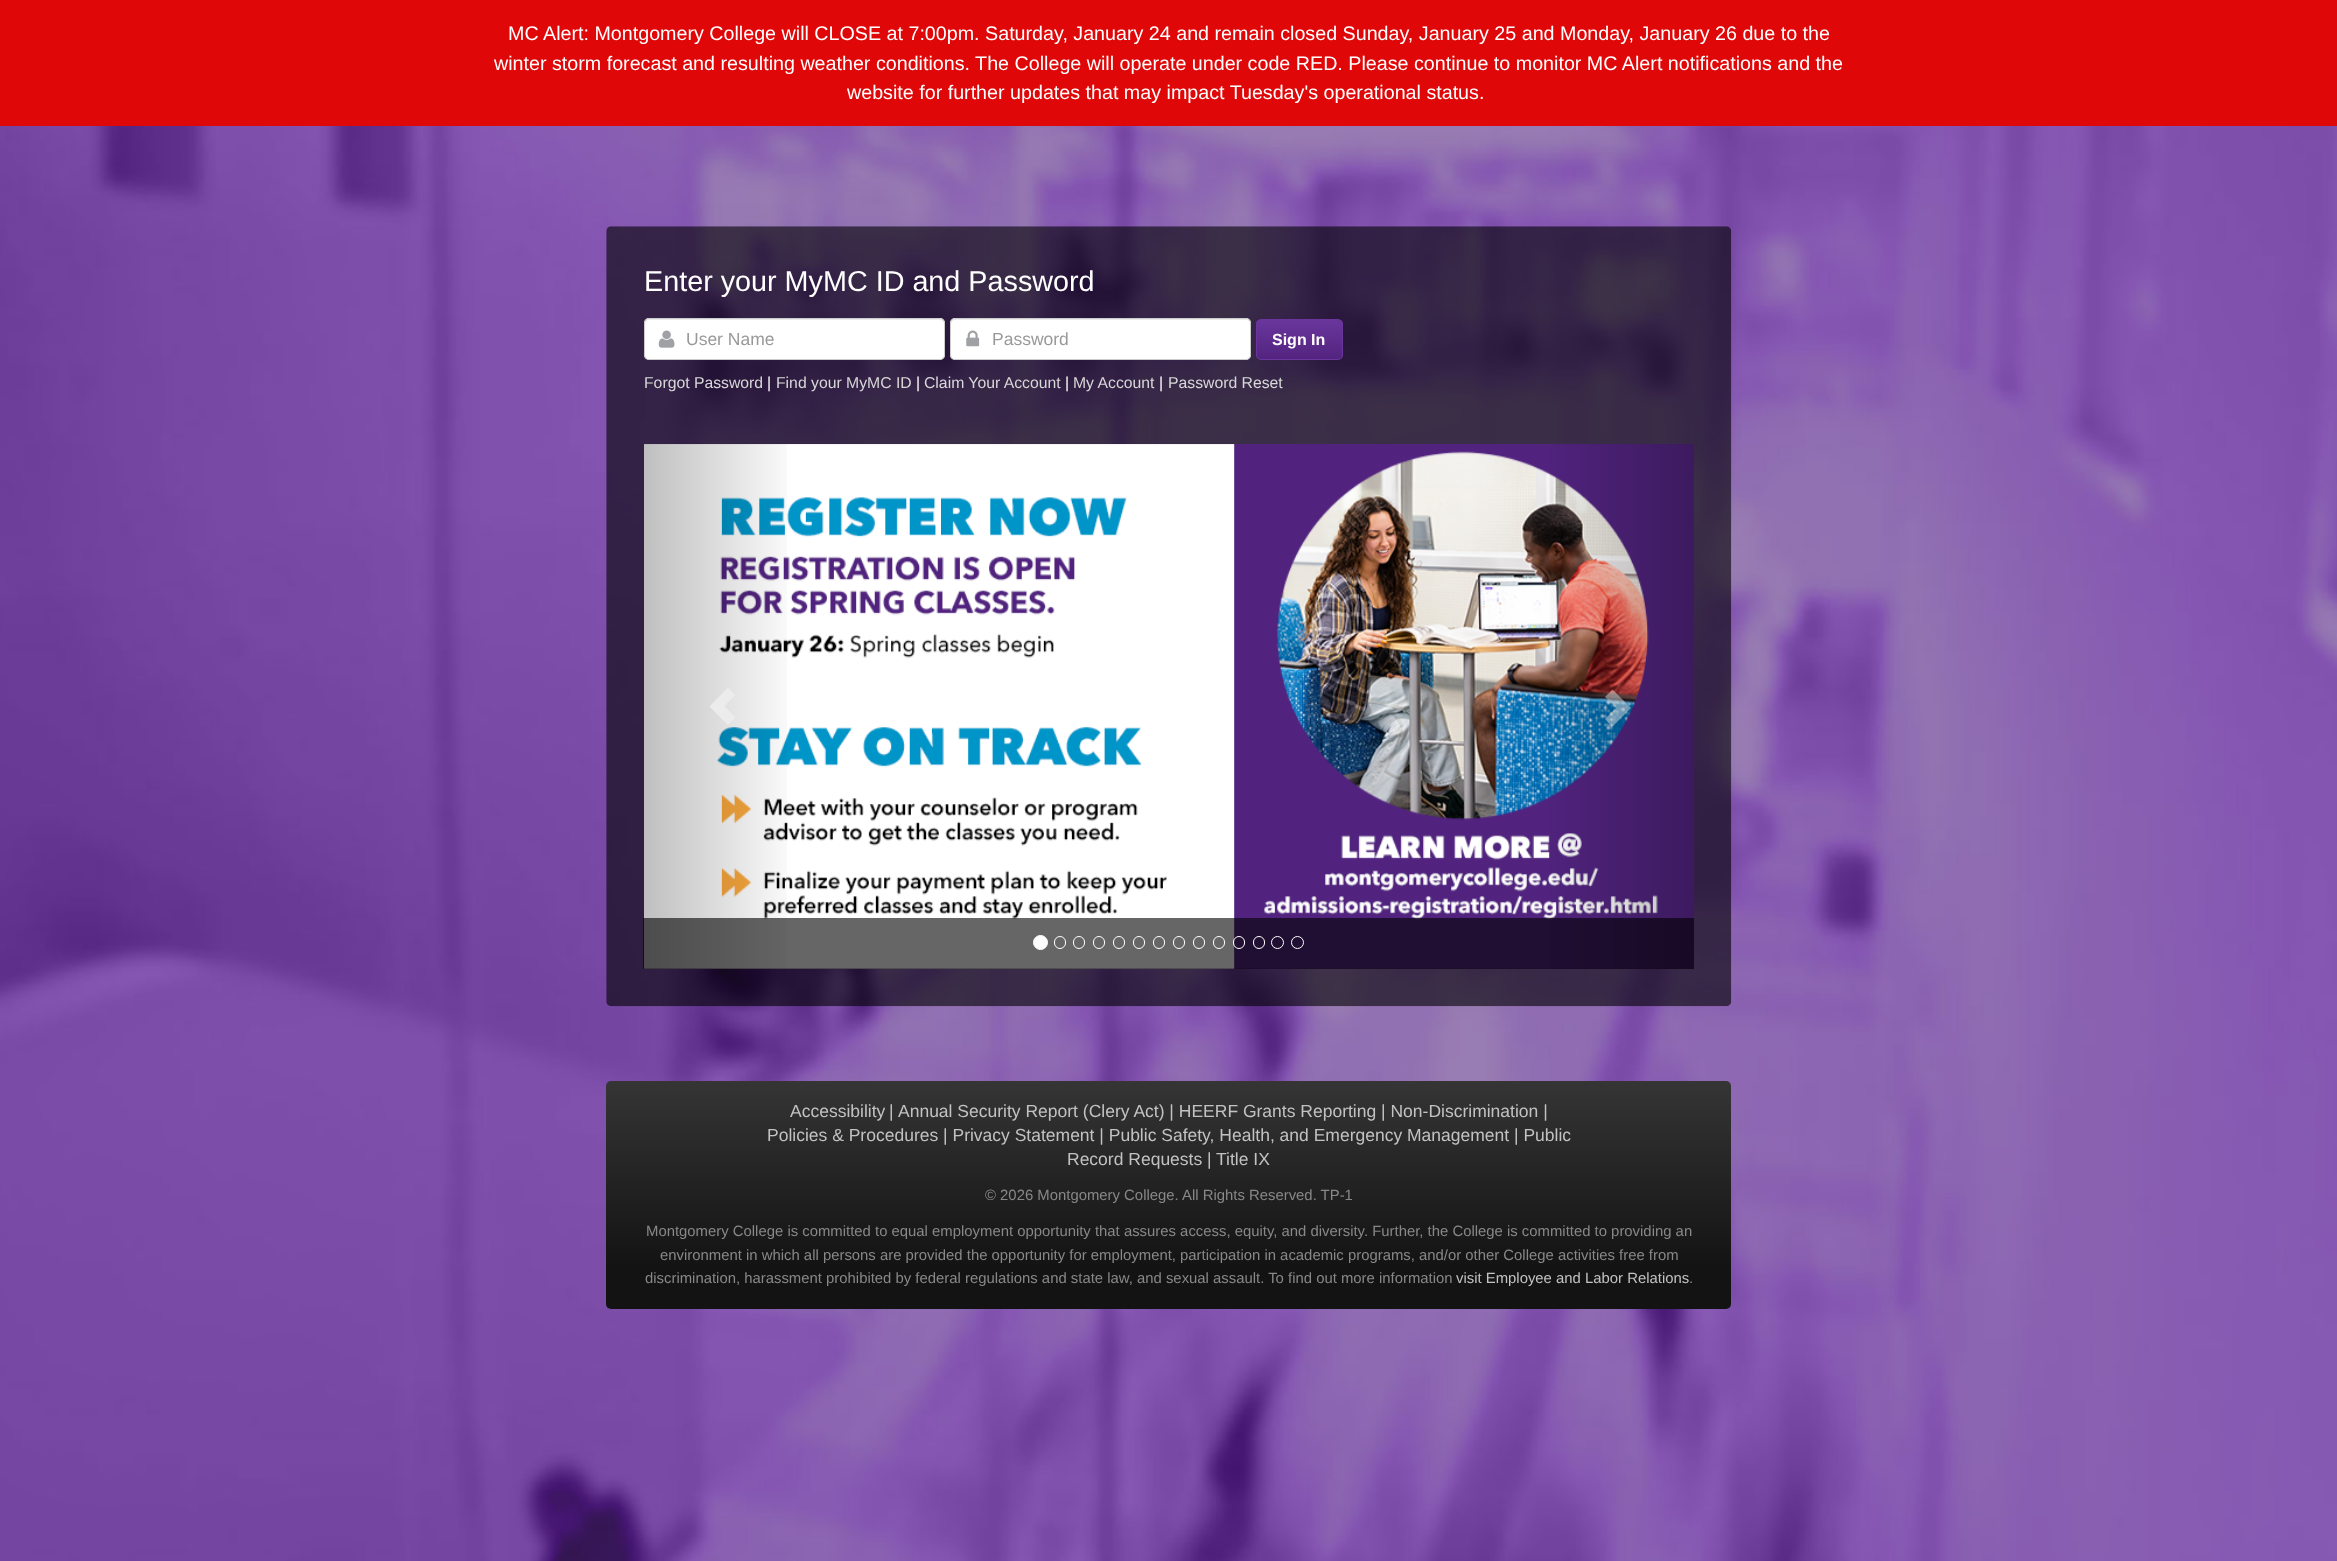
<!DOCTYPE html>
<meta charset="utf-8">
<style>body { margin: 0 } canvas { display: block }</style>
<canvas id="canvas" width="2337" height="1561"></canvas>
<script type="module">
  const canvas = document.getElementById("canvas");
  const ctx = canvas.getContext("2d");
  ctx.miterLimit = 4;
  ctx.fontKerning = "normal";
  async function loadImage(src) {
    const img = new Image();
    img.src = src;
    await img.decode();
    return img;
  }
  let gradient;

  ctx.fillStyle = "#ffffff";
  ctx.fillRect(0, 0, 2337, 1561);
  ctx.fillStyle = "#df0707";
  ctx.fillRect(0, 0, 2337, 126);
  ctx.font = "19.7px Liberation Sans";
  ctx.fillStyle = "#ffffff";
  ctx.fillText("MC Alert: Montgomery College will CLOSE at 7:00pm. Saturday, January 24 and remain closed Sunday, January 25 and Monday, January 26 due to the", 508, 40);
  ctx.fillText("winter storm forecast and resulting weather conditions. The College will operate under code RED. Please continue to monitor MC Alert notifications and the", 494, 70);
  ctx.fillText("website for further updates that may impact Tuesday's operational status.", 847, 99);
  ctx.drawImage(await loadImage("img1.png"), 0, 126, 2337, 1435);
  ctx.drawImage(await loadImage("img2.png"), 606, 226, 1126, 781);
  ctx.font = "28.75px Liberation Sans";
  ctx.fillText("Enter your MyMC ID and Password", 644, 291);
  ctx.beginPath();
  ctx.roundRect(644, 318, 301, 42, 5);
  ctx.fill();
  ctx.fillStyle = "#ececec";
  ctx.beginPath();
  ctx.moveTo(649, 320);
  ctx.lineTo(940, 320);
  ctx.bezierCurveTo(942, 320, 944, 322, 944, 324);
  ctx.bezierCurveTo(944, 321, 943, 319, 940, 319);
  ctx.lineTo(649, 319);
  ctx.bezierCurveTo(646, 319, 645, 321, 645, 324);
  ctx.bezierCurveTo(645, 322, 647, 320, 649, 320);
  ctx.closePath();
  ctx.fill();
  ctx.beginPath();
  ctx.roundRect(644.5, 318.5, 300, 41, 4.5);
  ctx.strokeStyle = "#cccccc";
  ctx.stroke();
  ctx.drawImage(await loadImage("img3.png"), 658, 330, 17, 18);
  ctx.font = "17.5px Liberation Sans";
  ctx.fillStyle = "#999999";
  ctx.fillText("User Name", 686, 345);
  ctx.fillStyle = "#ffffff";
  ctx.beginPath();
  ctx.roundRect(950, 318, 301, 42, 5);
  ctx.fill();
  ctx.fillStyle = "#ececec";
  ctx.beginPath();
  ctx.moveTo(955, 320);
  ctx.lineTo(1246, 320);
  ctx.bezierCurveTo(1248, 320, 1250, 322, 1250, 324);
  ctx.bezierCurveTo(1250, 321, 1249, 319, 1246, 319);
  ctx.lineTo(955, 319);
  ctx.bezierCurveTo(952, 319, 951, 321, 951, 324);
  ctx.bezierCurveTo(951, 322, 953, 320, 955, 320);
  ctx.closePath();
  ctx.fill();
  ctx.beginPath();
  ctx.roundRect(950.5, 318.5, 300, 41, 4.5);
  ctx.stroke();
  ctx.drawImage(await loadImage("img4.png"), 966, 330, 14, 17);
  ctx.fillStyle = "#999999";
  ctx.fillText("Password", 992, 345);
  ctx.save();
  ctx.beginPath();
  ctx.roundRect(1256, 319, 87, 41, 5);
  ctx.clip();
  gradient = ctx.createLinearGradient(1299, 320, 1299, 359);
  gradient.addColorStop(0, "#6a369d");
  gradient.addColorStop(1, "#52247f");
  ctx.fillStyle = gradient;
  ctx.fillRect(1256, 320, 87, 39);
  ctx.restore();
  ctx.beginPath();
  ctx.roundRect(1256.5, 319.5, 86, 40, 4.5);
  ctx.strokeStyle = "#6a369d";
  ctx.stroke();
  ctx.font = "bold 16px Liberation Sans";
  ctx.fillStyle = "#ffffff";
  ctx.fillText("Sign In", 1272, 345);
  ctx.font = "15.75px Liberation Sans";
  ctx.fillStyle = "#d8d8d8";
  ctx.fillText("Forgot Password", 644, 388);
  ctx.fillStyle = "#ffffff";
  ctx.fillText("|", 767, 388);
  ctx.fillStyle = "#d8d8d8";
  ctx.fillText("Find your MyMC ID", 776, 388);
  ctx.fillStyle = "#ffffff";
  ctx.fillText("|", 916, 388);
  ctx.fillStyle = "#d8d8d8";
  ctx.fillText("Claim Your Account", 924, 388);
  ctx.fillStyle = "#ffffff";
  ctx.fillText("|", 1065, 388);
  ctx.fillStyle = "#d8d8d8";
  ctx.fillText("My Account", 1073, 388);
  ctx.fillStyle = "#ffffff";
  ctx.fillText("|", 1159, 388);
  ctx.fillStyle = "#d8d8d8";
  ctx.fillText("Password Reset", 1168, 388);
  ctx.drawImage(await loadImage("img5.png"), 644, 444, 1050, 525);
  gradient = ctx.createLinearGradient(644, 706, 801, 706);
  gradient.addColorStop(0, "rgba(0, 0, 0, 0.25)");
  gradient.addColorStop(1, "rgba(0, 0, 0, 0)");
  ctx.fillStyle = gradient;
  ctx.fillRect(644, 444, 143, 525);
  ctx.fillStyle = "#ececec";
  ctx.beginPath();
  ctx.moveTo(709.5, 706.5);
  ctx.lineTo(728, 725);
  ctx.lineTo(735.5, 717.5);
  ctx.lineTo(724.5, 706);
  ctx.lineTo(735.5, 695);
  ctx.lineTo(728, 687.5);
  ctx.closePath();
  ctx.fill();
  gradient = ctx.createLinearGradient(1536, 706, 1694, 706);
  gradient.addColorStop(0, "rgba(0, 0, 0, 0)");
  gradient.addColorStop(1, "rgba(0, 0, 0, 0.25)");
  ctx.fillStyle = gradient;
  ctx.fillRect(1550, 444, 144, 525);
  ctx.fillStyle = "rgba(216, 216, 216, 0.5)";
  ctx.beginPath();
  ctx.moveTo(1605, 719);
  ctx.lineTo(1616, 708);
  ctx.lineTo(1605, 697);
  ctx.lineTo(1612.5, 689.5);
  ctx.lineTo(1631, 708);
  ctx.lineTo(1612.5, 726.5);
  ctx.closePath();
  ctx.fill();
  ctx.fillStyle = "rgba(0, 0, 0, 0.6)";
  ctx.fillRect(643, 918, 1051, 51);
  ctx.fillStyle = "#ffffff";
  ctx.beginPath();
  ctx.arc(1040.5, 942.5, 7, 0, Math.PI * 2);
  ctx.fill();
  ctx.strokeStyle = "#ffffff";
  ctx.stroke();
  ctx.beginPath();
  ctx.roundRect(1054.5, 936.5, 11, 12, 5.5);
  ctx.stroke();
  ctx.beginPath();
  ctx.roundRect(1073.5, 936.5, 11, 12, 5.5);
  ctx.stroke();
  ctx.beginPath();
  ctx.roundRect(1093.5, 936.5, 11, 12, 5.5);
  ctx.stroke();
  ctx.beginPath();
  ctx.roundRect(1113.5, 936.5, 11, 12, 5.5);
  ctx.stroke();
  ctx.beginPath();
  ctx.roundRect(1133.5, 936.5, 11, 12, 5.5);
  ctx.stroke();
  ctx.beginPath();
  ctx.roundRect(1153.5, 936.5, 11, 12, 5.5);
  ctx.stroke();
  ctx.beginPath();
  ctx.roundRect(1173.5, 936.5, 11, 12, 5.5);
  ctx.stroke();
  ctx.beginPath();
  ctx.roundRect(1193.5, 936.5, 11, 12, 5.5);
  ctx.stroke();
  ctx.beginPath();
  ctx.roundRect(1213.5, 936.5, 11, 12, 5.5);
  ctx.stroke();
  ctx.beginPath();
  ctx.roundRect(1233.5, 936.5, 11, 12, 5.5);
  ctx.stroke();
  ctx.beginPath();
  ctx.roundRect(1253.5, 936.5, 11, 12, 5.5);
  ctx.stroke();
  ctx.beginPath();
  ctx.arc(1277.5, 942.5, 6, 0, Math.PI * 2);
  ctx.stroke();
  ctx.beginPath();
  ctx.arc(1297.5, 942.5, 6, 0, Math.PI * 2);
  ctx.stroke();
  gradient = ctx.createLinearGradient(1169, 1081, 1169, 1309);
  gradient.addColorStop(0, "#353535");
  gradient.addColorStop(0.82, "#131313");
  ctx.fillStyle = gradient;
  ctx.beginPath();
  ctx.roundRect(606, 1081, 1125, 228, 5);
  ctx.fill();
  ctx.font = "17.5px Liberation Sans";
  ctx.fillStyle = "#c2c2c2";
  ctx.fillText("Accessibility", 790, 1117);
  ctx.fillText("|", 889, 1117);
  ctx.fillText("Annual Security Report (Clery Act) | HEERF Grants Reporting | Non-Discrimination |", 898, 1117);
  ctx.fillText("Policies & Procedures | Privacy Statement | Public Safety, Health, and Emergency Management | Public", 767, 1141);
  ctx.fillText("Record Requests |", 1067, 1165);
  ctx.fillText("Title IX", 1216, 1165);
  ctx.font = "14.88px Liberation Sans";
  ctx.fillStyle = "#888888";
  ctx.fillText("© 2026 Montgomery College. All Rights Reserved. TP-1", 985, 1200);
  ctx.fillText("Montgomery College is committed to equal employment opportunity that assures access, equity, and diversity. Further, the College is committed to providing an", 646, 1236);
  ctx.fillText("environment in which all persons are provided the opportunity for employment, participation in academic programs, and/or other College activities free from", 660, 1260);
  ctx.fillText("discrimination, harassment prohibited by federal regulations and state law, and sexual assault. To find out more information", 645, 1283);
  ctx.fillStyle = "#c2c2c2";
  ctx.fillText("visit Employee and Labor Relations", 1456, 1283);
  ctx.fillStyle = "#888888";
  ctx.fillText(".", 1689, 1283);
</script>
